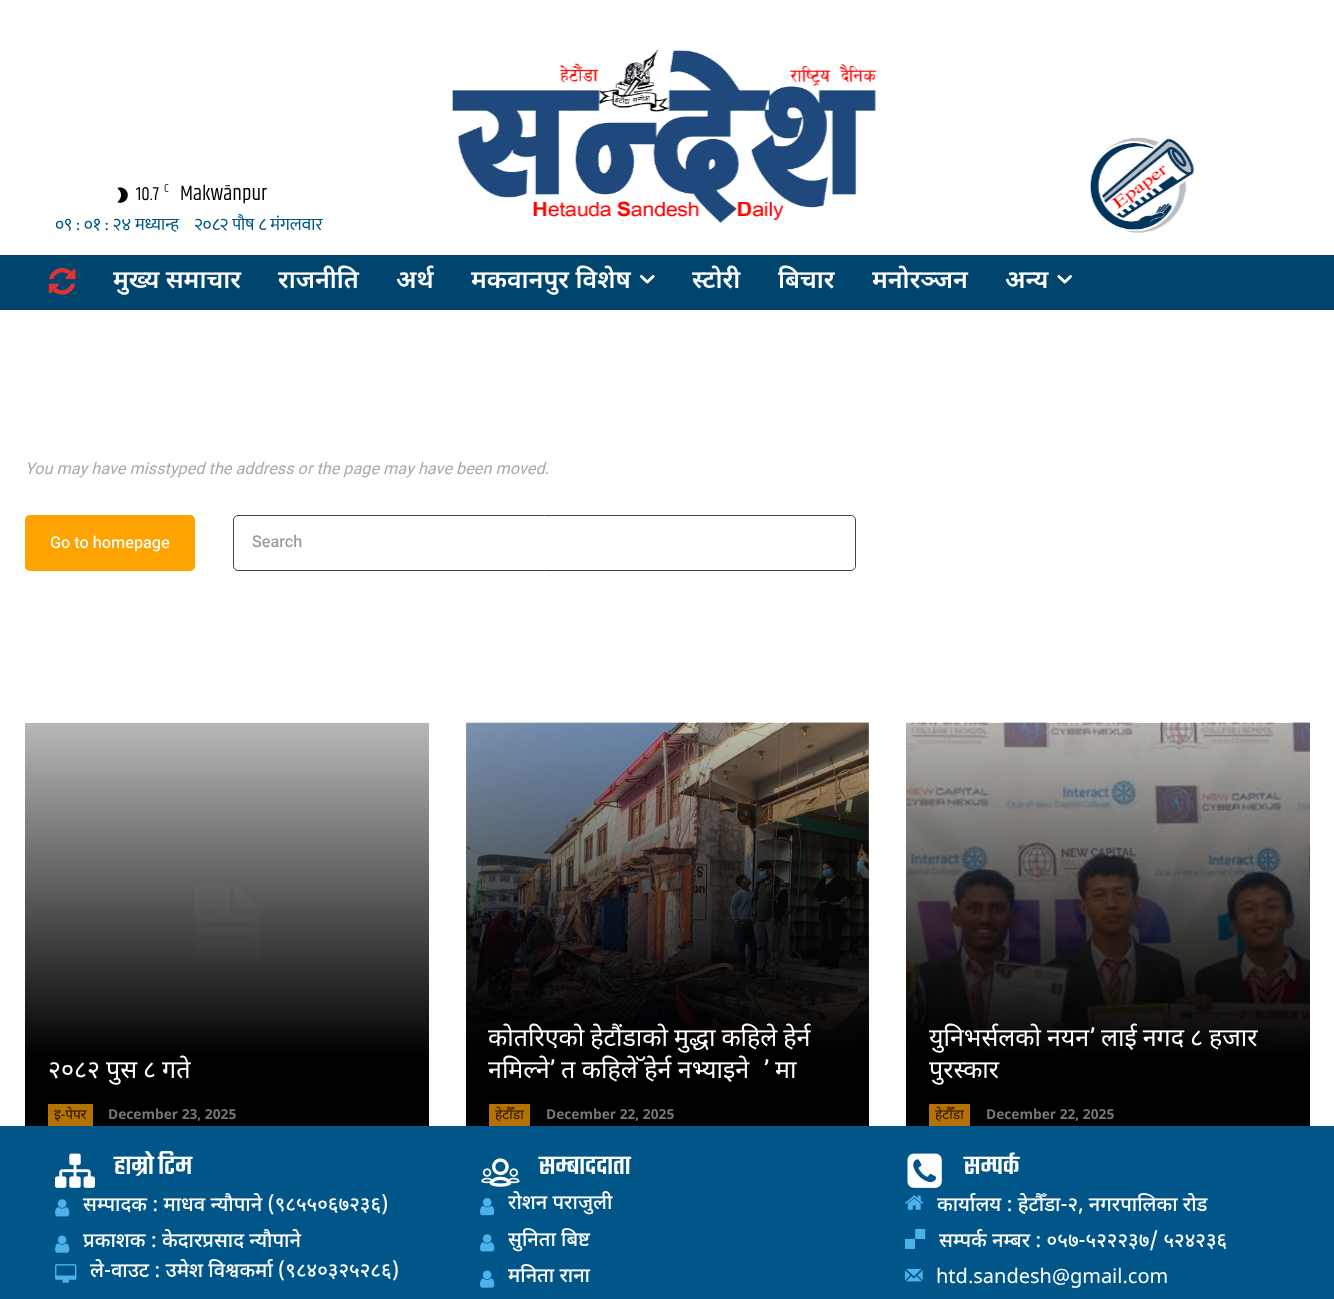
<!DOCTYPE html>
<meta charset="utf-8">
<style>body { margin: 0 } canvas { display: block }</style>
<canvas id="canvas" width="1334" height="1299"></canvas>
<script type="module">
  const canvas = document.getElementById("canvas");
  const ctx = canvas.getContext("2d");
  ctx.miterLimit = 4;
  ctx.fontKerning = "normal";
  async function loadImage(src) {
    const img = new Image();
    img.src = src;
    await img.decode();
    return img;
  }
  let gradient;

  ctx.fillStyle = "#ffffff";
  ctx.fillRect(0, 0, 1334, 1299);
  ctx.drawImage(await loadImage("img1.png"), 117, 187, 11, 16);
  ctx.font = "19px Khand";
  ctx.fillStyle = "#000000";
  ctx.fillText("10.7", 136, 200);
  ctx.font = "12px Khand";
  ctx.fillText("C", 164, 192);
  ctx.font = "21.25px Khand";
  ctx.fillText("Makwānpur", 180, 200);
  ctx.drawImage(await loadImage("img2.png"), 55, 214, 268, 18);
  ctx.drawImage(await loadImage("img3.png"), 452, 50, 425, 173);
  ctx.drawImage(await loadImage("img4.png"), 1090, 137, 104, 96);
  ctx.fillStyle = "#00456e";
  ctx.fillRect(0, 255, 1334, 55);
  ctx.drawImage(await loadImage("img5.png"), 48, 267, 28, 28);
  ctx.font = "600 25px Noto Sans Devanagari";
  ctx.fillStyle = "#ffffff";
  ctx.fillText("मुख्य समाचार", 113, 288);
  ctx.fillText("राजनीति", 278, 288);
  ctx.fillText("अर्थ", 396, 288);
  ctx.fillText("मकवानपुर विशेष", 471, 288);
  ctx.drawImage(await loadImage("img6.png"), 640, 275, 15, 9);
  ctx.fillText("स्टोरी", 692, 288);
  ctx.fillText("बिचार", 778, 288);
  ctx.fillText("मनोरञ्जन", 872, 288);
  ctx.fillText("अन्य", 1005, 288);
  ctx.drawImage(await loadImage("img7.png"), 1057, 275, 15, 9);
  ctx.font = "italic 16.25px Heebo";
  ctx.fillStyle = "#aaaaaa";
  ctx.fillText("You may have misstyped the address or the page may have been moved.", 25, 474);
  ctx.fillStyle = "#ffa301";
  ctx.beginPath();
  ctx.roundRect(25, 515, 170, 56, 5);
  ctx.fill();
  ctx.font = "500 16.25px Heebo";
  ctx.fillStyle = "#ffffff";
  ctx.fillText("Go to homepage", 50, 548);
  ctx.beginPath();
  ctx.roundRect(233.5, 515.5, 622, 55, 4.5);
  ctx.strokeStyle = "#444444";
  ctx.stroke();
  ctx.fillStyle = "#999999";
  ctx.fillText("Search", 252, 547);
  ctx.drawImage(await loadImage("img8.png"), 25, 722, 404, 333);
  gradient = ctx.createLinearGradient(227, 1126, 227, 723);
  gradient.addColorStop(0, "#000000");
  gradient.addColorStop(0.17, "#000000");
  gradient.addColorStop(1, "rgba(0, 0, 0, 0.25)");
  ctx.fillStyle = gradient;
  ctx.fillRect(25, 723, 404, 403);
  ctx.wordSpacing = "-0.5px";
  ctx.font = "25px Noto Sans";
  ctx.fillStyle = "#ffffff";
  ctx.fillText("२०८२ पुस ८ गते", 48, 1078);
  ctx.fillStyle = "#b37201";
  ctx.fillRect(48, 1104, 45, 22);
  ctx.wordSpacing = "0px";
  ctx.font = "13.75px Noto Sans";
  ctx.fillStyle = "#230e00";
  ctx.fillText("इ-पेपर", 54, 1119);
  ctx.font = "bold 13.75px Open Sans";
  ctx.fillStyle = "#767676";
  ctx.fillText("December 23, 2025", 108, 1119);
  ctx.drawImage(await loadImage("img9.png"), 466, 722, 403, 333);
  gradient = ctx.createLinearGradient(668, 1126, 668, 723);
  gradient.addColorStop(0, "#000000");
  gradient.addColorStop(0.17, "#000000");
  gradient.addColorStop(1, "rgba(0, 0, 0, 0.25)");
  ctx.fillStyle = gradient;
  ctx.fillRect(466, 723, 403, 403);
  ctx.wordSpacing = "-0.5px";
  ctx.font = "25px Noto Sans";
  ctx.fillStyle = "#ffffff";
  ctx.fillText("कोतरिएको हेटौंडाको मुद्धा कहिले हेर्न", 488, 1046);
  ctx.wordSpacing = "0px";
  ctx.fillText("नमिल्ने", 488, 1078);
  ctx.font = "500 25px Heebo";
  ctx.fillText("’", 550, 1078);
  ctx.font = "25px Noto Sans";
  ctx.fillText("त कहिले ॅहेर्न नभ्याइने", 561, 1078);
  ctx.font = "500 25px Heebo";
  ctx.fillText("’", 764, 1078);
  ctx.font = "25px Noto Sans";
  ctx.fillText("मा", 775, 1078);
  ctx.fillStyle = "#b37201";
  ctx.fillRect(489, 1104, 41, 22);
  ctx.font = "13.75px Noto Sans";
  ctx.fillStyle = "#230e00";
  ctx.fillText("हेटौँडा", 495, 1119);
  ctx.font = "bold 13.75px Open Sans";
  ctx.fillStyle = "#767676";
  ctx.fillText("December 22, 2025", 546, 1119);
  ctx.drawImage(await loadImage("img10.png"), 906, 722, 404, 333);
  gradient = ctx.createLinearGradient(1108, 1126, 1108, 723);
  gradient.addColorStop(0, "#000000");
  gradient.addColorStop(0.17, "#000000");
  gradient.addColorStop(1, "rgba(0, 0, 0, 0.25)");
  ctx.fillStyle = gradient;
  ctx.fillRect(906, 723, 404, 403);
  ctx.wordSpacing = "-0.5px";
  ctx.font = "25px Noto Sans";
  ctx.fillStyle = "#ffffff";
  ctx.fillText("युनिभर्सलको नयन", 929, 1046);
  ctx.wordSpacing = "0px";
  ctx.font = "500 25px Heebo";
  ctx.fillText("’", 1090, 1046);
  ctx.wordSpacing = "-0.5px";
  ctx.font = "25px Noto Sans";
  ctx.fillText("लाई नगद ८ हजार", 1101, 1046);
  ctx.wordSpacing = "0px";
  ctx.fillText("पुरस्कार", 929, 1078);
  ctx.fillStyle = "#b37201";
  ctx.fillRect(929, 1104, 41, 22);
  ctx.font = "13.75px Noto Sans";
  ctx.fillStyle = "#230e00";
  ctx.fillText("हेटौँडा", 935, 1119);
  ctx.font = "bold 13.75px Open Sans";
  ctx.fillStyle = "#767676";
  ctx.fillText("December 22, 2025", 986, 1119);
  ctx.fillStyle = "#005689";
  ctx.fillRect(0, 1126, 1334, 173);
  ctx.drawImage(await loadImage("img11.png"), 55, 1153, 40, 35);
  ctx.font = "500 27.5px Teko";
  ctx.fillStyle = "#ffffff";
  ctx.fillText("हाम्रो टिम", 114, 1174);
  ctx.drawImage(await loadImage("img12.png"), 55, 1199, 15, 18);
  ctx.font = "500 20px Noto Sans Devanagari";
  ctx.fillText("सम्पादक : माधव न्यौपाने (९८५५०६७२३६)", 83, 1211);
  ctx.drawImage(await loadImage("img13.png"), 55, 1235, 15, 18);
  ctx.fillText("प्रकाशक : केदारप्रसाद न्यौपाने", 83, 1247);
  ctx.drawImage(await loadImage("img14.png"), 55, 1264, 22, 19);
  ctx.fillText("ले-वाउट : उमेश विश्वकर्मा (९८४०३२५२८६)", 90, 1277);
  ctx.drawImage(await loadImage("img15.png"), 481, 1158, 39, 29);
  ctx.font = "500 27.5px Teko";
  ctx.fillText("सम्बाददाता", 539, 1174);
  ctx.drawImage(await loadImage("img16.png"), 480, 1198, 15, 18);
  ctx.font = "500 20px Noto Sans Devanagari";
  ctx.fillText("रोशन पराजुली", 508, 1209);
  ctx.drawImage(await loadImage("img12.png"), 480, 1234, 15, 18);
  ctx.fillText("सुनिता बिष्ट", 508, 1246);
  ctx.drawImage(await loadImage("img13.png"), 480, 1270, 15, 18);
  ctx.fillText("मनिता राना", 508, 1282);
  ctx.drawImage(await loadImage("img17.png"), 907, 1153, 35, 35);
  ctx.font = "500 27.5px Teko";
  ctx.fillText("सम्पर्क", 964, 1174);
  ctx.drawImage(await loadImage("img18.png"), 905, 1195, 19, 15);
  ctx.font = "500 20px Noto Sans Devanagari";
  ctx.fillText("कार्यालय : हेटौँडा-२, नगरपालिका रोड", 937, 1211);
  ctx.drawImage(await loadImage("img19.png"), 905, 1228, 21, 21);
  ctx.fillText("सम्पर्क नम्बर : ०५७-५२२२३७/ ५२४२३६", 939, 1247);
  ctx.drawImage(await loadImage("img20.png"), 905, 1268, 18, 14);
  ctx.font = "20px Noto Sans Devanagari";
  ctx.fillText("htd.sandesh@gmail.com", 936, 1283);
</script>
